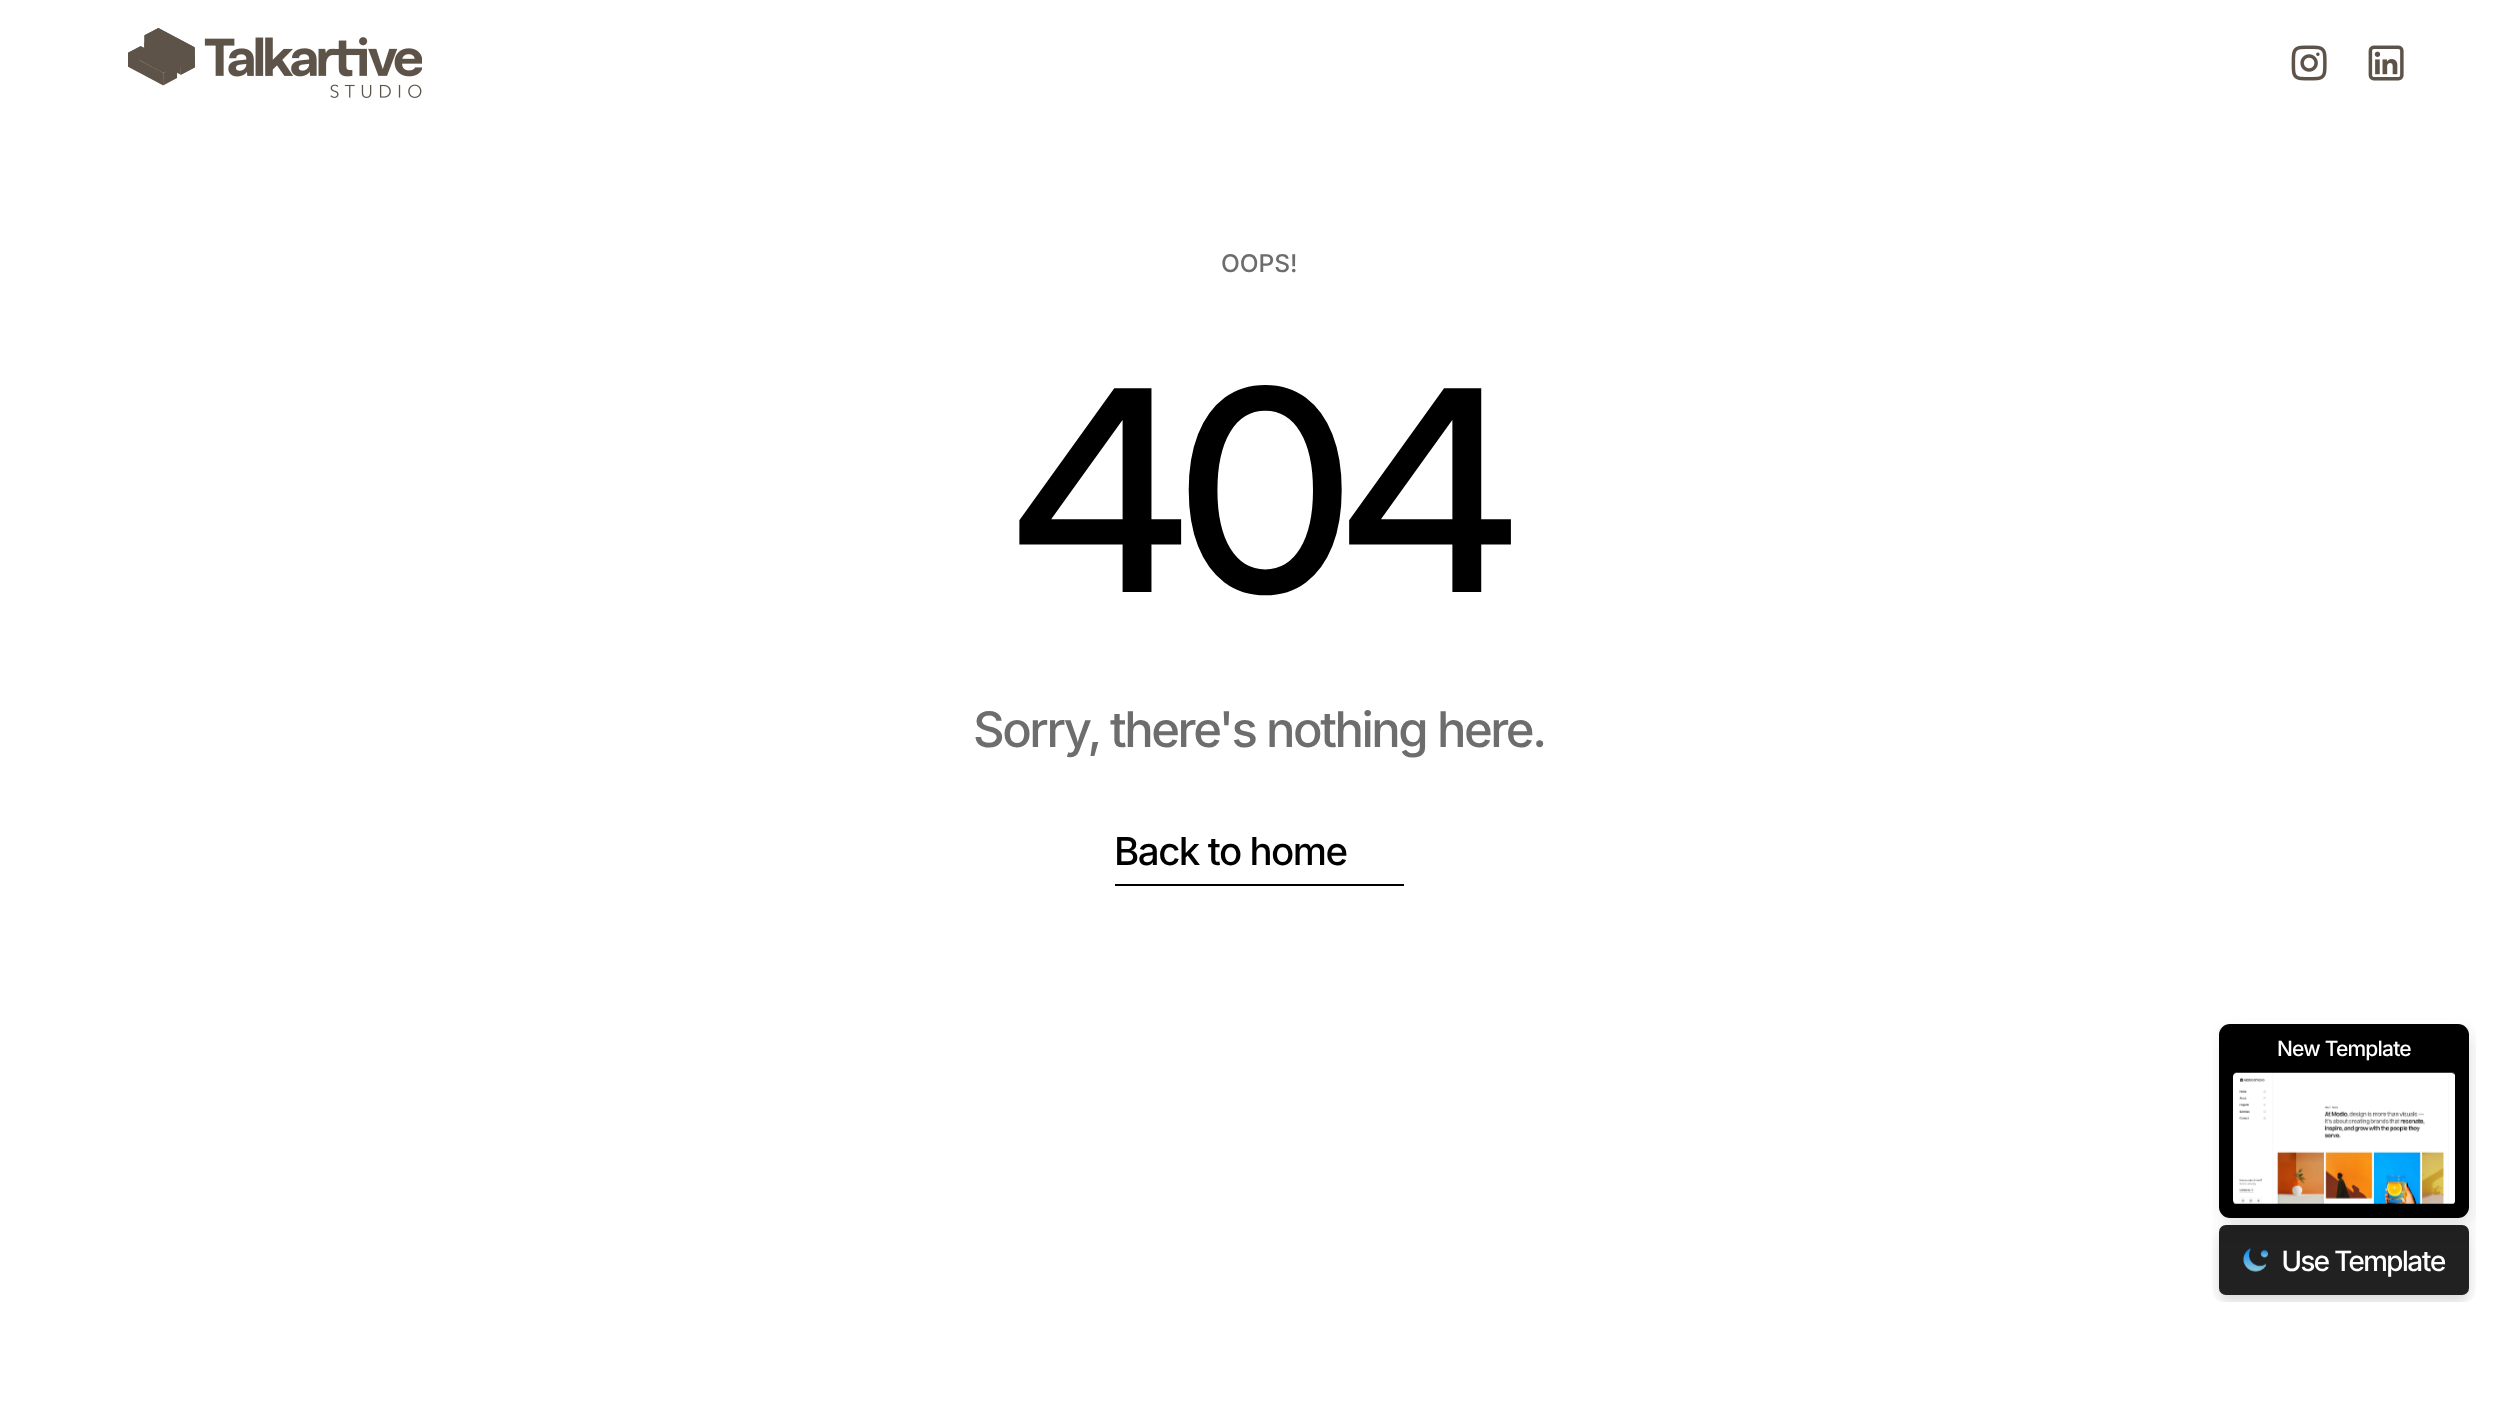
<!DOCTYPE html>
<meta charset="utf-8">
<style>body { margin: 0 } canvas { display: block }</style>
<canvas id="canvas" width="2517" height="1414"></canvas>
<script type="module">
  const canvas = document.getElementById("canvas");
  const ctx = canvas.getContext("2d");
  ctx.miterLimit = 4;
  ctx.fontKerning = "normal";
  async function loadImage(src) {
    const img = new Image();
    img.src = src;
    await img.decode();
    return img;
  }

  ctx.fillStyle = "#ffffff";
  ctx.fillRect(0, 0, 2517, 1414);
  ctx.drawImage(await loadImage("img1.png"), 128, 28, 294, 70);
  ctx.drawImage(await loadImage("img2.png"), 2291, 45, 36, 36);
  ctx.drawImage(await loadImage("img3.png"), 2368, 45, 36, 36);
  ctx.font = "500 24.5px Inter";
  ctx.fillStyle = "#6d6d6d";
  ctx.fillText("OOPS!", 1221, 272);
  ctx.letterSpacing = "-11px";
  ctx.font = "500 280px Inter Display";
  ctx.fillStyle = "#000000";
  ctx.fillText("404", 1012, 592);
  ctx.letterSpacing = "-2.45px";
  ctx.font = "500 49px Inter";
  ctx.fillStyle = "#6d6d6d";
  ctx.fillText("Sorry, there's nothing here.", 973, 747);
  ctx.letterSpacing = "-1.5px";
  ctx.font = "500 38.5px Inter";
  ctx.fillStyle = "#000000";
  ctx.fillText("Back to home", 1114, 865);
  ctx.fillRect(1115, 884, 289, 2);
  ctx.save();
  ctx.beginPath();
  ctx.roundRect(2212, 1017, 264, 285, 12);
  ctx.clip();
  ctx.fillStyle = "rgba(0, 0, 0, 0.15)";
  ctx.filter = "blur(7px)";
  ctx.beginPath();
  ctx.roundRect(2219, 1232, 250, 70, 7);
  ctx.fill();
  ctx.filter = "none";
  ctx.restore();
  ctx.fillStyle = "#212121";
  ctx.beginPath();
  ctx.roundRect(2219, 1225, 250, 70, 7);
  ctx.fill();
  ctx.drawImage(await loadImage("img5.png"), 2243, 1248, 25, 24);
  ctx.save();
  ctx.beginPath();
  ctx.roundRect(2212, 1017, 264, 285, 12);
  ctx.clip();
  ctx.fillStyle = "rgba(0, 0, 0, 0.1)";
  ctx.filter = "blur(9px)";
  ctx.beginPath();
  ctx.roundRect(2223, 1033, 250, 194, 11);
  ctx.fill();
  ctx.filter = "none";
  ctx.restore();
  ctx.fillStyle = "#000000";
  ctx.beginPath();
  ctx.roundRect(2219, 1024, 250, 194, 11);
  ctx.fill();
  ctx.letterSpacing = "-0.8px";
  ctx.font = "500 21px Inter";
  ctx.fillStyle = "#ffffff";
  ctx.fillText("New Template", 2277, 1056);
  ctx.drawImage(await loadImage("img4.png"), 2233, 1072, 222, 132);
  ctx.letterSpacing = "-0.5px";
  ctx.font = "500 28px Inter Tight";
  ctx.fillText("Use Template", 2282, 1271);
</script>
